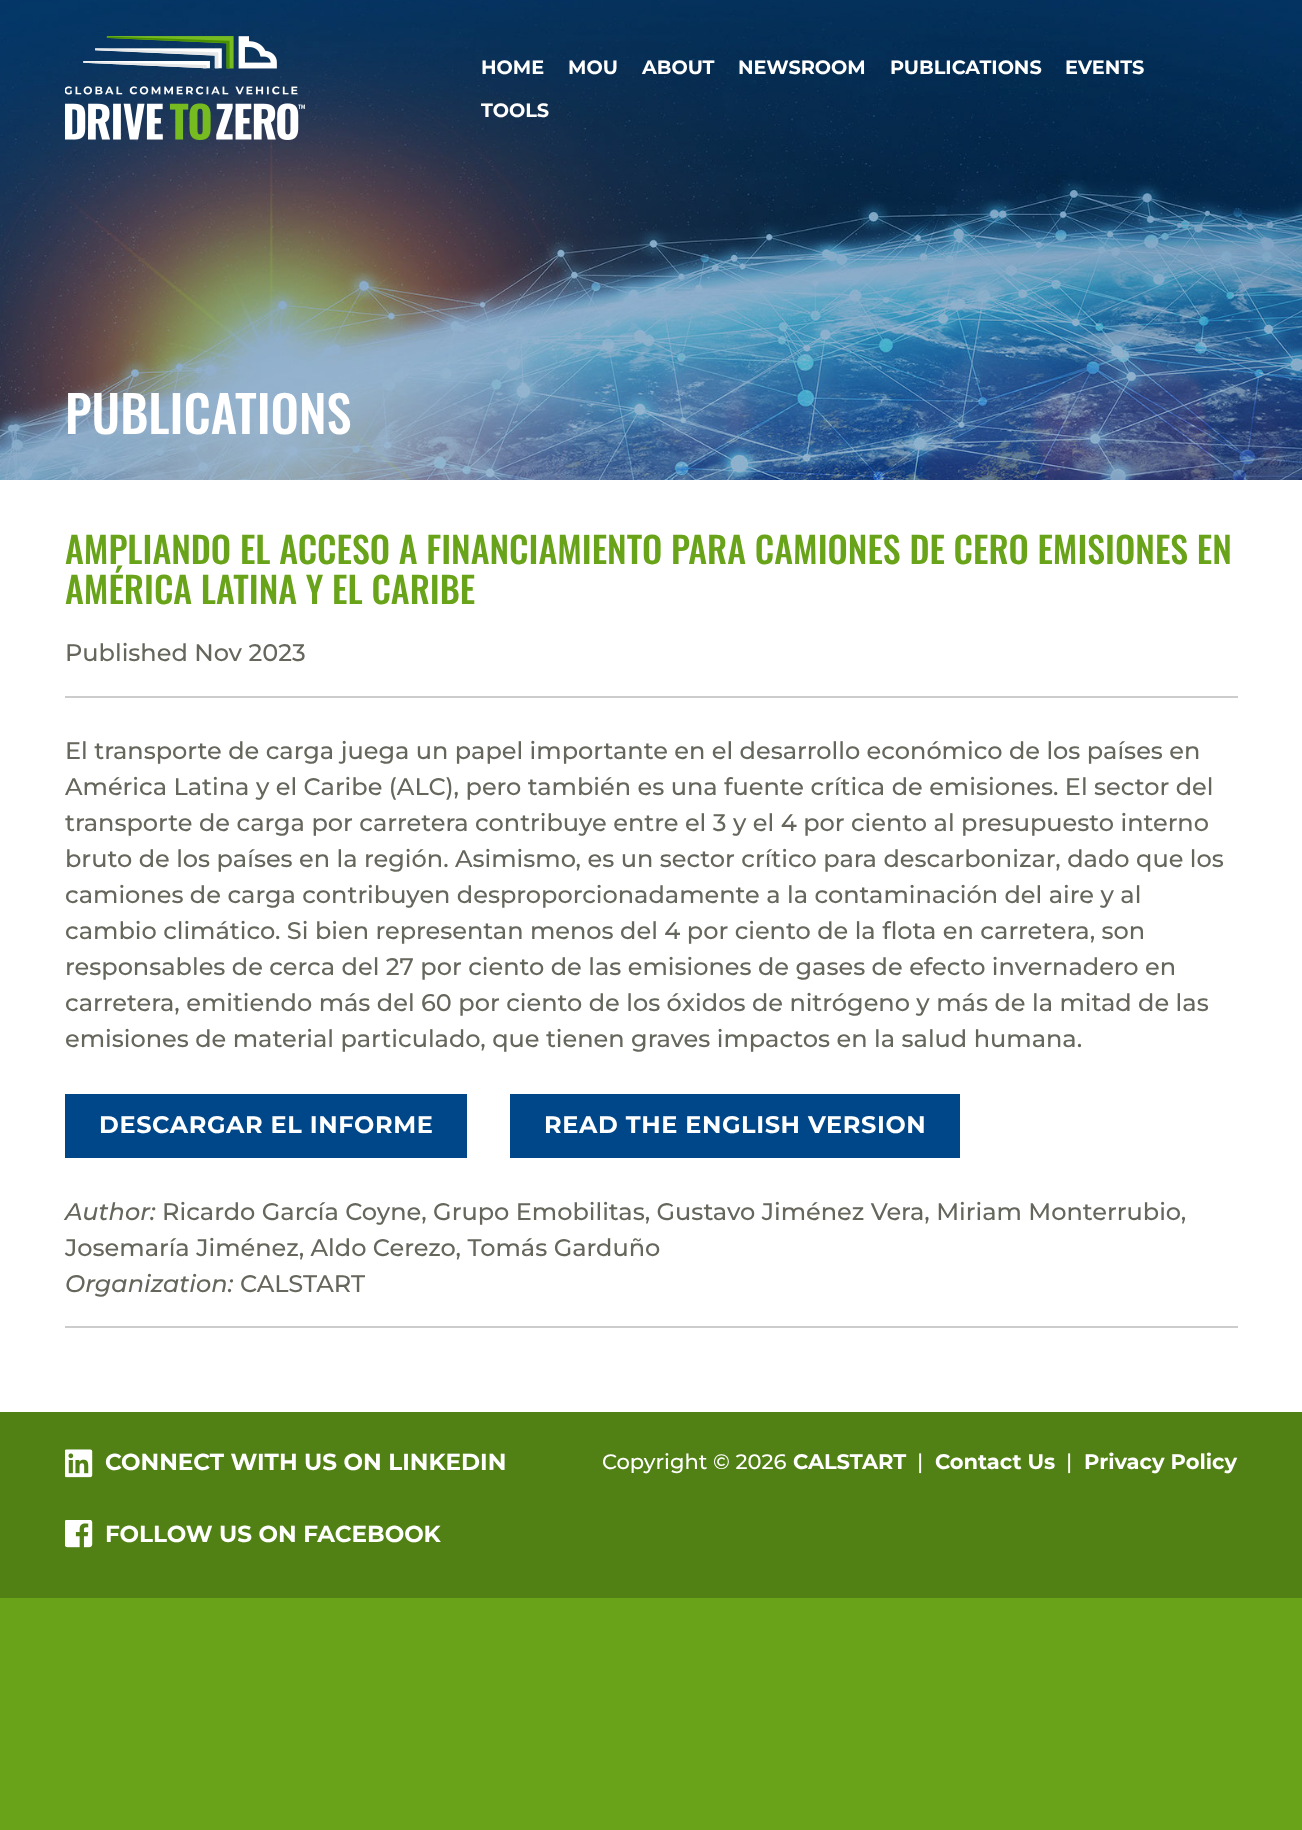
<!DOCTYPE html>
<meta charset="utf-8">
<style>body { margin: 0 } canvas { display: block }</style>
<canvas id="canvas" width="1302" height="1830"></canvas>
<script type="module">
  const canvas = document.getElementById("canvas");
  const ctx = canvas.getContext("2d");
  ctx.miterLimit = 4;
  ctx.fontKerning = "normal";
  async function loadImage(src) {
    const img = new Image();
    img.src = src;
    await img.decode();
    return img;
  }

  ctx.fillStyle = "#68a319";
  ctx.fillRect(0, 0, 1302, 1830);
  ctx.fillStyle = "#ffffff";
  ctx.fillRect(0, 480, 1302, 932);
  ctx.drawImage(await loadImage("img2.png"), 0, 0, 1302, 480);
  ctx.drawImage(await loadImage("img1.png"), 65, 36, 240, 104);
  ctx.font = "bold 19.25px Montserrat";
  ctx.fillText("HOME", 481, 74);
  ctx.fillText("MOU", 568, 74);
  ctx.fillText("ABOUT", 642, 74);
  ctx.fillText("NEWSROOM", 738, 74);
  ctx.fillText("PUBLICATIONS", 890, 74);
  ctx.fillText("EVENTS", 1065, 74);
  ctx.fillText("TOOLS", 481, 117);
  ctx.font = "500 50.5px Oswald";
  ctx.fillText("PUBLICATIONS", 65, 434);
  ctx.font = "500 36px Oswald";
  ctx.fillStyle = "#68a319";
  ctx.fillText("AMPLIANDO EL ACCESO A FINANCIAMIENTO PARA CAMIONES DE CERO EMISIONES EN", 65, 564);
  ctx.fillText("AMÉRICA LATINA Y EL CARIBE", 65, 604);
  ctx.fillStyle = "#cccccc";
  ctx.fillRect(65, 696, 1173, 2);
  ctx.font = "500 24px Montserrat";
  ctx.fillStyle = "#66665d";
  ctx.fillText("Published Nov 2023", 65, 661);
  ctx.fillText("El transporte de carga juega un papel importante en el desarrollo económico de los países en", 65, 759);
  ctx.fillText("América Latina y el Caribe (ALC), pero también es una fuente crítica de emisiones. El sector del", 65, 795);
  ctx.fillText("transporte de carga por carretera contribuye entre el 3 y el 4 por ciento al presupuesto interno", 65, 831);
  ctx.fillText("bruto de los países en la región. Asimismo, es un sector crítico para descarbonizar, dado que los", 65, 867);
  ctx.fillText("camiones de carga contribuyen desproporcionadamente a la contaminación del aire y al", 65, 903);
  ctx.fillText("cambio climático. Si bien representan menos del 4 por ciento de la flota en carretera, son", 65, 939);
  ctx.fillText("responsables de cerca del 27 por ciento de las emisiones de gases de efecto invernadero en", 65, 975);
  ctx.fillText("carretera, emitiendo más del 60 por ciento de los óxidos de nitrógeno y más de la mitad de las", 65, 1011);
  ctx.fillText("emisiones de material particulado, que tienen graves impactos en la salud humana.", 65, 1047);
  ctx.fillStyle = "#004789";
  ctx.fillRect(65, 1094, 402, 64);
  ctx.letterSpacing = "0.6px";
  ctx.font = "bold 24px Montserrat";
  ctx.fillStyle = "#ffffff";
  ctx.fillText("DESCARGAR EL INFORME", 99, 1133);
  ctx.fillStyle = "#004789";
  ctx.fillRect(510, 1094, 450, 64);
  ctx.fillStyle = "#ffffff";
  ctx.fillText("READ THE ENGLISH VERSION", 544, 1133);
  ctx.fillStyle = "#cccccc";
  ctx.fillRect(65, 1326, 1173, 2);
  ctx.letterSpacing = "0px";
  ctx.font = "italic 100 24px Montserrat";
  ctx.fillStyle = "#66665d";
  ctx.fillText("Author:", 65, 1220);
  ctx.font = "500 24px Montserrat";
  ctx.fillText("Ricardo García Coyne, Grupo Emobilitas, Gustavo Jiménez Vera, Miriam Monterrubio,", 162, 1220);
  ctx.fillText("Josemaría Jiménez, Aldo Cerezo, Tomás Garduño", 65, 1256);
  ctx.font = "italic 100 24px Montserrat";
  ctx.fillText("Organization:", 65, 1292);
  ctx.font = "500 24px Montserrat";
  ctx.fillText("CALSTART", 240, 1292);
  ctx.fillStyle = "#518014";
  ctx.fillRect(0, 1412, 1302, 186);
  ctx.drawImage(await loadImage("img3.png"), 65, 1449, 28, 29);
  ctx.font = "bold 23.1px Montserrat";
  ctx.fillStyle = "#ffffff";
  ctx.fillText("CONNECT WITH US ON LINKEDIN", 105, 1470);
  ctx.drawImage(await loadImage("img4.png"), 65, 1520, 28, 28);
  ctx.fillText("FOLLOW US ON FACEBOOK", 105, 1542);
  ctx.font = "500 21px Montserrat";
  ctx.fillText("Copyright © 2026", 602, 1469);
  ctx.font = "bold 21px Montserrat";
  ctx.fillText("CALSTART", 793, 1469);
  ctx.font = "500 21px Montserrat";
  ctx.fillText("|", 917, 1469);
  ctx.font = "bold 21px Montserrat";
  ctx.fillText("Contact Us", 935, 1469);
  ctx.font = "500 21px Montserrat";
  ctx.fillText("|", 1066, 1469);
  ctx.font = "bold 21px Montserrat";
  ctx.fillText("Privacy Policy", 1084, 1469);
</script>
